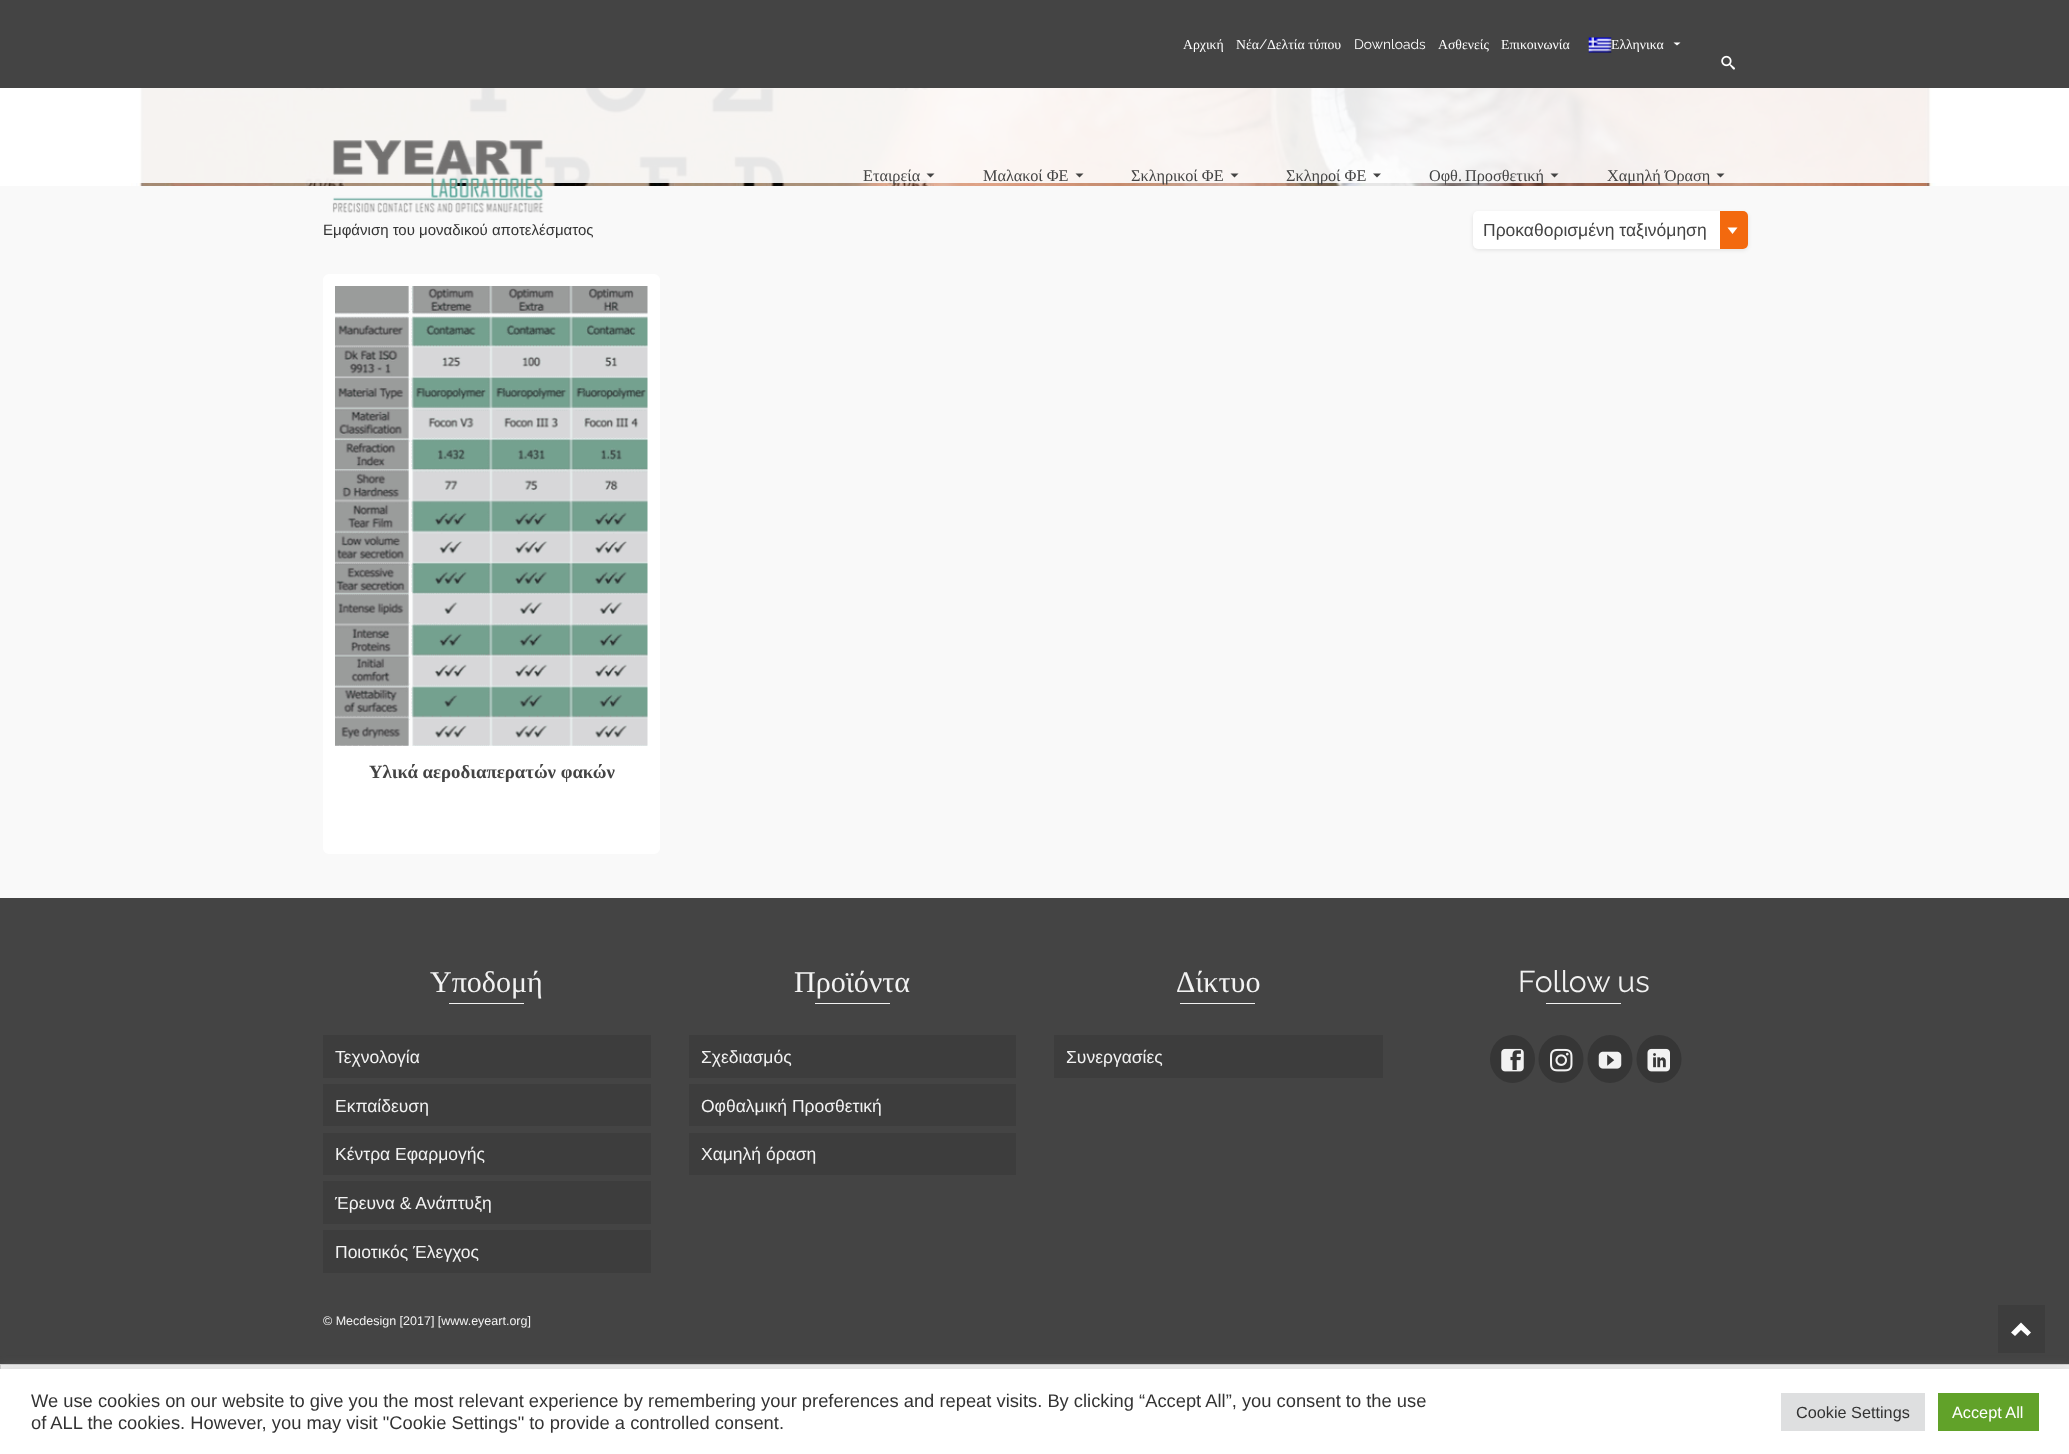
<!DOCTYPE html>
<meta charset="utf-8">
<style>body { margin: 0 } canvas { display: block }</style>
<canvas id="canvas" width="2069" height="1454"></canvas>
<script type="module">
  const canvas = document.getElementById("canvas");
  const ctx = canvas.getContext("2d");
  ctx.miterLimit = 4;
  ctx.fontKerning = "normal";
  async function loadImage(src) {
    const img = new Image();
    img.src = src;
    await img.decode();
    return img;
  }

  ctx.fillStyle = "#f9f9f9";
  ctx.fillRect(0, 0, 2069, 1454);
  ctx.fillStyle = "#444444";
  ctx.fillRect(0, 0, 2069, 88);
  ctx.font = "13.75px Liberation Serif";
  ctx.fillStyle = "#ffffff";
  ctx.fillText("Αρχική", 1183, 49);
  ctx.fillText("Νέα", 1236, 49);
  ctx.font = "13.75px Raleway";
  ctx.fillText("/", 1259, 49);
  ctx.font = "13.75px Liberation Serif";
  ctx.fillText("Δελτία τύπου", 1267, 49);
  ctx.font = "13.75px Raleway";
  ctx.fillText("Downloads", 1354, 49);
  ctx.font = "13.75px Liberation Serif";
  ctx.fillText("Ασθενείς", 1438, 49);
  ctx.fillText("Επικοινωνία", 1501, 49);
  ctx.drawImage(await loadImage("img1.png"), 1588, 37, 24, 16);
  ctx.fillText("Ελληνικα", 1611, 49);
  ctx.beginPath();
  ctx.moveTo(1673.5, 42.5);
  ctx.lineTo(1677, 45.5);
  ctx.lineTo(1680.5, 42.5);
  ctx.closePath();
  ctx.fill();
  ctx.drawImage(await loadImage("img2.png"), 1721, 55, 14, 15);
  ctx.fillRect(0, 88, 2069, 98);
  ctx.drawImage(await loadImage("img4.png"), 131, 88, 1805, 98);
  ctx.drawImage(await loadImage("img3.png"), 332, 140, 212, 73);
  ctx.font = "16.25px Liberation Serif";
  ctx.fillStyle = "#444444";
  ctx.fillText("Εταιρεία", 863, 181);
  ctx.beginPath();
  ctx.moveTo(926.5, 173.5);
  ctx.lineTo(930.5, 177.5);
  ctx.lineTo(934.5, 173.5);
  ctx.closePath();
  ctx.fill();
  ctx.fillText("Μαλακοί ΦΕ", 983, 181);
  ctx.beginPath();
  ctx.moveTo(1075.5, 173.5);
  ctx.lineTo(1079.5, 177.5);
  ctx.lineTo(1083.5, 173.5);
  ctx.closePath();
  ctx.fill();
  ctx.fillText("Σκληρικοί ΦΕ", 1131, 181);
  ctx.beginPath();
  ctx.moveTo(1230.5, 173.5);
  ctx.lineTo(1234.5, 177.5);
  ctx.lineTo(1238.5, 173.5);
  ctx.closePath();
  ctx.fill();
  ctx.fillText("Σκληροί ΦΕ", 1286, 181);
  ctx.beginPath();
  ctx.moveTo(1373, 173.5);
  ctx.lineTo(1377, 177.5);
  ctx.lineTo(1381, 173.5);
  ctx.closePath();
  ctx.fill();
  ctx.wordSpacing = "-1px";
  ctx.fillText("Οφθ. Προσθετική", 1429, 181);
  ctx.beginPath();
  ctx.moveTo(1550.5, 173.5);
  ctx.lineTo(1554.5, 177.5);
  ctx.lineTo(1558.5, 173.5);
  ctx.closePath();
  ctx.fill();
  ctx.wordSpacing = "0px";
  ctx.fillText("Χαμηλή Όραση", 1607, 181);
  ctx.beginPath();
  ctx.moveTo(1716.5, 173.5);
  ctx.lineTo(1720.5, 177.5);
  ctx.lineTo(1724.5, 173.5);
  ctx.closePath();
  ctx.fill();
  ctx.font = "15px Liberation Sans";
  ctx.fillStyle = "#333333";
  ctx.fillText("Εμφάνιση του μοναδικού αποτελέσματος", 323, 235);
  ctx.fillStyle = "rgba(0, 0, 0, 0.1)";
  ctx.filter = "blur(2px)";
  ctx.beginPath();
  ctx.roundRect(1473, 213, 275, 37, 5);
  ctx.fill();
  ctx.filter = "none";
  ctx.fillStyle = "#ffffff";
  ctx.beginPath();
  ctx.roundRect(1473, 211, 275, 38, 5);
  ctx.fill();
  ctx.font = "17.5px Liberation Sans";
  ctx.fillStyle = "#444444";
  ctx.fillText("Προκαθορισμένη ταξινόμηση", 1483, 236);
  ctx.fillStyle = "#f3690e";
  ctx.beginPath();
  ctx.roundRect(1720, 211, 28, 38, [0, 5, 5, 0]);
  ctx.fill();
  ctx.fillStyle = "#ffffff";
  ctx.beginPath();
  ctx.moveTo(1727.5, 227.5);
  ctx.lineTo(1737.5, 227.5);
  ctx.lineTo(1732.5, 234);
  ctx.closePath();
  ctx.fill();
  ctx.beginPath();
  ctx.roundRect(323, 274, 337, 580, 6);
  ctx.fill();
  ctx.drawImage(await loadImage("img5.png"), 335, 286, 313, 460);
  ctx.font = "bold 18.75px Liberation Serif";
  ctx.fillStyle = "#444444";
  ctx.fillText("Υλικά αεροδιαπερατών φακών", 369, 778);
  ctx.fillRect(0, 898, 2069, 466);
  ctx.font = "30px Liberation Serif";
  ctx.fillStyle = "#f2f2f2";
  ctx.fillText("Υποδομή", 430, 992);
  ctx.fillRect(449, 1003, 75, 1);
  ctx.fillStyle = "#3d3d3d";
  ctx.fillRect(323, 1035, 328, 43);
  ctx.font = "17.5px Liberation Sans";
  ctx.fillStyle = "#f2f2f2";
  ctx.fillText("Τεχνολογία", 335, 1063);
  ctx.fillStyle = "#3d3d3d";
  ctx.fillRect(323, 1084, 328, 42);
  ctx.fillStyle = "#f2f2f2";
  ctx.fillText("Εκπαίδευση", 335, 1112);
  ctx.fillStyle = "#3d3d3d";
  ctx.fillRect(323, 1133, 328, 42);
  ctx.fillStyle = "#f2f2f2";
  ctx.fillText("Κέντρα Εφαρμογής", 335, 1160);
  ctx.fillStyle = "#3d3d3d";
  ctx.fillRect(323, 1181, 328, 43);
  ctx.fillStyle = "#f2f2f2";
  ctx.fillText("Έρευνα & Ανάπτυξη", 335, 1209);
  ctx.fillStyle = "#3d3d3d";
  ctx.fillRect(323, 1230, 328, 43);
  ctx.fillStyle = "#f2f2f2";
  ctx.fillText("Ποιοτικός Έλεγχος", 335, 1258);
  ctx.font = "30px Liberation Serif";
  ctx.fillText("Προϊόντα", 794, 992);
  ctx.fillRect(815, 1003, 75, 1);
  ctx.fillStyle = "#3d3d3d";
  ctx.fillRect(689, 1035, 327, 43);
  ctx.font = "17.5px Liberation Sans";
  ctx.fillStyle = "#f2f2f2";
  ctx.fillText("Σχεδιασμός", 701, 1063);
  ctx.fillStyle = "#3d3d3d";
  ctx.fillRect(689, 1084, 327, 42);
  ctx.fillStyle = "#f2f2f2";
  ctx.fillText("Οφθαλμική Προσθετική", 701, 1112);
  ctx.fillStyle = "#3d3d3d";
  ctx.fillRect(689, 1133, 327, 42);
  ctx.fillStyle = "#f2f2f2";
  ctx.fillText("Χαμηλή όραση", 701, 1160);
  ctx.font = "30px Liberation Serif";
  ctx.fillText("Δίκτυο", 1176, 992);
  ctx.fillRect(1180, 1003, 75, 1);
  ctx.fillStyle = "#3d3d3d";
  ctx.fillRect(1054, 1035, 329, 43);
  ctx.font = "17.5px Liberation Sans";
  ctx.fillStyle = "#f2f2f2";
  ctx.fillText("Συνεργασίες", 1066, 1063);
  ctx.font = "30px Raleway";
  ctx.fillText("Follow us", 1518, 992);
  ctx.fillRect(1546, 1003, 75, 1);
  ctx.fillStyle = "#363636";
  ctx.beginPath();
  ctx.ellipse(1512.5, 1059, 22.5, 24, 0, 0, Math.PI * 2);
  ctx.fill();
  ctx.drawImage(await loadImage("img6.png"), 1501, 1048, 23, 24);
  ctx.beginPath();
  ctx.ellipse(1561, 1059, 22.5, 24, 0, 0, Math.PI * 2);
  ctx.fill();
  ctx.drawImage(await loadImage("img7.png"), 1550, 1048, 23, 24);
  ctx.beginPath();
  ctx.ellipse(1610, 1059, 22.5, 24, 0, 0, Math.PI * 2);
  ctx.fill();
  ctx.drawImage(await loadImage("img8.png"), 1598, 1051, 24, 18);
  ctx.beginPath();
  ctx.ellipse(1659, 1059, 22.5, 24, 0, 0, Math.PI * 2);
  ctx.fill();
  ctx.drawImage(await loadImage("img9.png"), 1647, 1048, 23, 24);
  ctx.font = "12.5px Liberation Sans";
  ctx.fillStyle = "#f2f2f2";
  ctx.fillText("© Mecdesign [2017] [www.eyeart.org]", 323, 1325);
  ctx.fillStyle = "#3d3d3d";
  ctx.fillRect(1998, 1305, 47, 48);
  ctx.fillStyle = "#ffffff";
  ctx.beginPath();
  ctx.moveTo(2011, 1332.5);
  ctx.lineTo(2015, 1336);
  ctx.lineTo(2021, 1330);
  ctx.lineTo(2027.5, 1336);
  ctx.lineTo(2031, 1332.5);
  ctx.lineTo(2021, 1322.5);
  ctx.closePath();
  ctx.fill();
  ctx.fillStyle = "#eeeeee";
  ctx.fillRect(1, 1365, 2068, 4);
  ctx.strokeStyle = "#cdcdcd";
  ctx.strokeRect(0.5, 1364.5, 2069, 53);
  ctx.fillStyle = "rgba(172, 171, 171, 0.3)";
  ctx.filter = "blur(6px)";
  ctx.beginPath();
  ctx.rect(0, 1368, 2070, 86);
  ctx.fill();
  ctx.filter = "none";
  ctx.fillStyle = "#ffffff";
  ctx.fillRect(0, 1369, 2069, 85);
  ctx.font = "18.33px Liberation Sans";
  ctx.fillStyle = "#333333";
  ctx.fillText("We use cookies on our website to give you the most relevant experience by remembering your preferences and repeat visits. By clicking “Accept All”, you consent to the use", 31, 1407);
  ctx.fillText("of ALL the cookies. However, you may visit \"Cookie Settings\" to provide a controlled consent.", 31, 1429);
  ctx.fillStyle = "#dedfe0";
  ctx.fillRect(1781, 1393, 144, 38);
  ctx.font = "16.25px Liberation Sans";
  ctx.fillStyle = "#333333";
  ctx.fillText("Cookie Settings", 1796, 1418);
  ctx.fillStyle = "#61a229";
  ctx.fillRect(1938, 1393, 101, 38);
  ctx.fillStyle = "#ffffff";
  ctx.fillText("Accept All", 1952, 1418);
</script>
